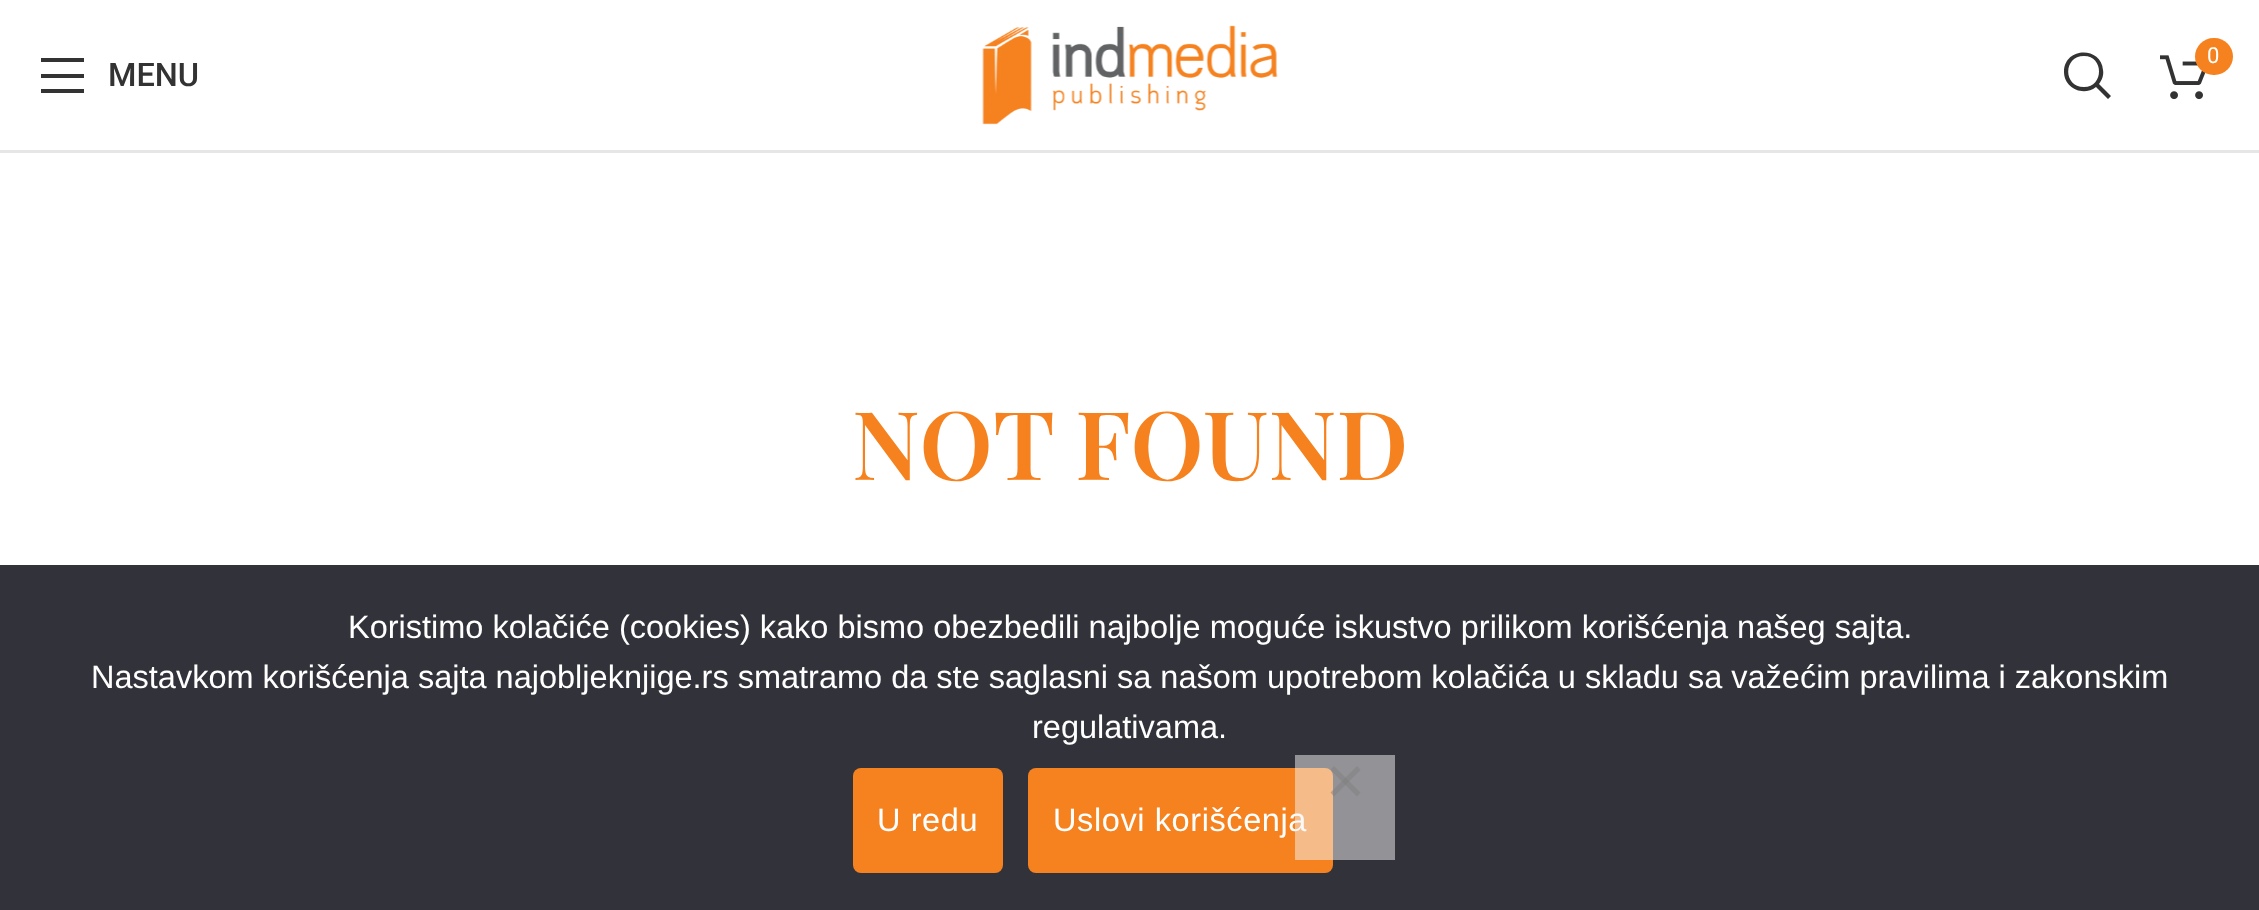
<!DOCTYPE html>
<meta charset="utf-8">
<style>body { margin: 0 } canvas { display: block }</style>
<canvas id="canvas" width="2259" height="910"></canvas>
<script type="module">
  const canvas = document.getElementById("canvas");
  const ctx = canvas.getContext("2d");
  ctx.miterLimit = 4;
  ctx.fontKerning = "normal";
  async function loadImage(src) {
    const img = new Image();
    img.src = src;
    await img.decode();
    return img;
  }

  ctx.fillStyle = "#ffffff";
  ctx.fillRect(0, 0, 2259, 910);
  ctx.fillStyle = "#e6e6e6";
  ctx.fillRect(0, 150, 2259, 3);
  ctx.drawImage(await loadImage("img1.png"), 982, 25, 296, 100);
  ctx.fillStyle = "#333333";
  ctx.beginPath();
  ctx.moveTo(2064, 72);
  ctx.bezierCurveTo(2064, 88, 2083, 97, 2096, 87);
  ctx.lineTo(2108, 99);
  ctx.lineTo(2111, 96);
  ctx.lineTo(2099, 84);
  ctx.bezierCurveTo(2102, 80, 2104, 75, 2103, 70);
  ctx.bezierCurveTo(2101, 46, 2064, 47, 2064, 72);
  ctx.closePath();
  ctx.moveTo(2084, 87);
  ctx.bezierCurveTo(2063, 87, 2063, 56, 2084, 56);
  ctx.bezierCurveTo(2104, 56, 2104, 87, 2084, 87);
  ctx.closePath();
  ctx.fill();
  ctx.drawImage(await loadImage("img2.png"), 2160, 55, 46, 45);
  ctx.fillStyle = "#f6821f";
  ctx.beginPath();
  ctx.roundRect(2195, 38, 38, 37, 18.5);
  ctx.fill();
  ctx.font = "22px Roboto";
  ctx.fillStyle = "#ffffff";
  ctx.fillText("0", 2207, 63);
  ctx.fillStyle = "#333333";
  ctx.beginPath();
  ctx.moveTo(41, 62);
  ctx.lineTo(84, 62);
  ctx.lineTo(84, 58);
  ctx.lineTo(41, 58);
  ctx.closePath();
  ctx.moveTo(41, 78);
  ctx.lineTo(84, 78);
  ctx.lineTo(84, 74);
  ctx.lineTo(41, 74);
  ctx.closePath();
  ctx.moveTo(41, 93);
  ctx.lineTo(84, 93);
  ctx.lineTo(84, 89);
  ctx.lineTo(41, 89);
  ctx.closePath();
  ctx.fill();
  ctx.font = "500 32.5px Roboto";
  ctx.fillText("MENU", 108, 86);
  ctx.font = "600 95px Playfair Display";
  ctx.fillStyle = "#f6821f";
  ctx.fillText("NOT FOUND", 852, 480);
  ctx.fillStyle = "#32323a";
  ctx.fillRect(0, 565, 2259, 345);
  ctx.font = "32.5px Liberation Sans";
  ctx.fillStyle = "#ffffff";
  ctx.fillText("Koristimo kolačiće (cookies) kako bismo obezbedili najbolje moguće iskustvo prilikom korišćenja našeg sajta.", 348, 638);
  ctx.fillText("Nastavkom korišćenja sajta najobljeknjige.rs smatramo da ste saglasni sa našom upotrebom kolačića u skladu sa važećim pravilima i zakonskim", 91, 688);
  ctx.fillText("regulativama.", 1032, 738);
  ctx.fillStyle = "#f6821f";
  ctx.beginPath();
  ctx.roundRect(853, 768, 150, 105, 8);
  ctx.fill();
  ctx.letterSpacing = "0.6px";
  ctx.fillStyle = "#ffffff";
  ctx.fillText("U redu", 877, 831);
  ctx.fillStyle = "#f6821f";
  ctx.beginPath();
  ctx.roundRect(1028, 768, 305, 105, 8);
  ctx.fill();
  ctx.fillStyle = "#ffffff";
  ctx.fillText("Uslovi korišćenja", 1053, 831);
  ctx.fillStyle = "rgba(243, 243, 243, 0.5)";
  ctx.fillRect(1295, 755, 100, 105);
  ctx.fillStyle = "rgba(128, 128, 128, 0.5)";
  ctx.beginPath();
  ctx.moveTo(1357, 766);
  ctx.lineTo(1360.5, 770);
  ctx.lineTo(1334, 796.5);
  ctx.lineTo(1330.5, 792.5);
  ctx.closePath();
  ctx.fill();
  ctx.beginPath();
  ctx.moveTo(1330.5, 770);
  ctx.lineTo(1334, 766);
  ctx.lineTo(1360.5, 792.5);
  ctx.lineTo(1357, 796.5);
  ctx.closePath();
  ctx.fill();
</script>
